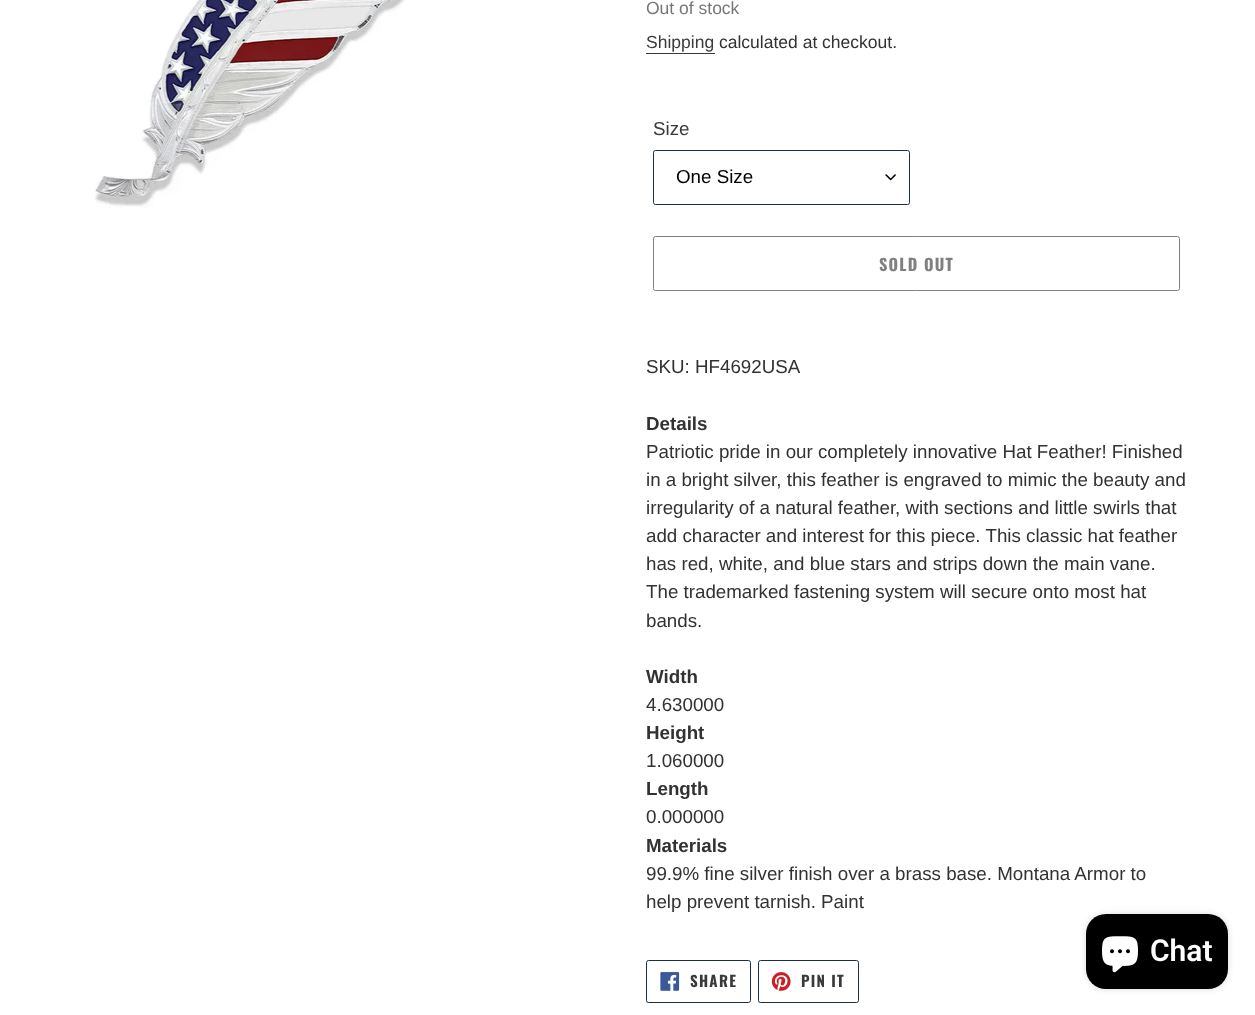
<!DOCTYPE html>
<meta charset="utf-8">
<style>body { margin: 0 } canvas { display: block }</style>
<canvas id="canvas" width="1255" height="1015"></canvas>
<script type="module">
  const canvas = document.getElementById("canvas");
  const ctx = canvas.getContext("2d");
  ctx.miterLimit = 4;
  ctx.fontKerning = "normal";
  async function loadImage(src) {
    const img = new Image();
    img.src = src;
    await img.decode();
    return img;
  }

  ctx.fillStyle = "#ffffff";
  ctx.fillRect(0, 0, 1255, 1015);
  ctx.drawImage(await loadImage("img1.png"), 94, 0, 311, 208);
  ctx.font = "17.5px Liberation Sans";
  ctx.fillStyle = "#777777";
  ctx.fillText("Out of stock", 646, 14);
  ctx.fillStyle = "#3a3a3a";
  ctx.fillText("Shipping", 646, 48);
  ctx.fillRect(646, 53, 69, 1);
  ctx.fillStyle = "#333232";
  ctx.fillText("calculated at checkout.", 719, 48);
  ctx.font = "18.75px Liberation Sans";
  ctx.fillStyle = "#3a3a3a";
  ctx.fillText("Size", 653, 135);
  ctx.drawImage(await loadImage("img2.png"), 885, 174, 11, 7);
  ctx.beginPath();
  ctx.roundRect(653.5, 150.5, 256, 54, 2);
  ctx.strokeStyle = "#182e49";
  ctx.stroke();
  ctx.fillStyle = "#000000";
  ctx.fillText("One Size", 676, 183);
  ctx.beginPath();
  ctx.roundRect(653.5, 236.5, 526, 54, 2);
  ctx.strokeStyle = "#808080";
  ctx.stroke();
  ctx.letterSpacing = "1.25px";
  ctx.font = "bold 16.25px Oswald";
  ctx.fillStyle = "#808080";
  ctx.fillText("SOLD OUT", 879, 271);
  ctx.letterSpacing = "0px";
  ctx.font = "18.75px Liberation Sans";
  ctx.fillStyle = "#333232";
  ctx.fillText("SKU: HF4692USA", 646, 373);
  ctx.font = "bold 18.75px Liberation Sans";
  ctx.fillText("Details", 646, 430);
  ctx.font = "18.75px Liberation Sans";
  ctx.fillText("Patriotic pride in our completely innovative Hat Feather! Finished", 646, 458);
  ctx.fillText("in a bright silver, this feather is engraved to mimic the beauty and", 646, 486);
  ctx.fillText("irregularity of a natural feather, with sections and little swirls that", 646, 514);
  ctx.fillText("add character and interest for this piece. This classic hat feather", 646, 542);
  ctx.fillText("has red, white, and blue stars and strips down the main vane.", 646, 570);
  ctx.fillText("The trademarked fastening system will secure onto most hat", 646, 598);
  ctx.fillText("bands.", 646, 627);
  ctx.font = "bold 18.75px Liberation Sans";
  ctx.fillText("Width", 646, 683);
  ctx.font = "18.75px Liberation Sans";
  ctx.fillText("4.630000", 646, 711);
  ctx.font = "bold 18.75px Liberation Sans";
  ctx.fillText("Height", 646, 739);
  ctx.font = "18.75px Liberation Sans";
  ctx.fillText("1.060000", 646, 767);
  ctx.font = "bold 18.75px Liberation Sans";
  ctx.fillText("Length", 646, 795);
  ctx.font = "18.75px Liberation Sans";
  ctx.fillText("0.000000", 646, 823);
  ctx.font = "bold 18.75px Liberation Sans";
  ctx.fillText("Materials", 646, 852);
  ctx.font = "18.75px Liberation Sans";
  ctx.fillText("99.9% fine silver finish over a brass base. Montana Armor to", 646, 880);
  ctx.fillText("help prevent tarnish. Paint", 646, 908);
  ctx.beginPath();
  ctx.roundRect(646.5, 960.5, 104, 42, 2);
  ctx.strokeStyle = "#182e49";
  ctx.stroke();
  ctx.drawImage(await loadImage("img3.png"), 660, 972, 20, 19);
  ctx.letterSpacing = "1.25px";
  ctx.font = "bold 15px Oswald";
  ctx.fillStyle = "#3a3a3a";
  ctx.fillText("SHARE", 690, 987);
  ctx.beginPath();
  ctx.roundRect(758.5, 960.5, 100, 42, 2);
  ctx.stroke();
  ctx.drawImage(await loadImage("img4.png"), 771, 972, 20, 19);
  ctx.fillText("PIN IT", 801, 987);
  ctx.fillStyle = "rgba(0, 0, 0, 0.15)";
  ctx.filter = "blur(3px)";
  ctx.beginPath();
  ctx.roundRect(1086, 914, 142, 75, 20);
  ctx.fill();
  ctx.filter = "none";
  ctx.fillStyle = "#000000";
  ctx.beginPath();
  ctx.roundRect(1086, 914, 142, 75, 20);
  ctx.fill();
  ctx.drawImage(await loadImage("img5.png"), 1102, 936, 36, 37);
  ctx.letterSpacing = "0px";
  ctx.font = "600 30px Roboto";
  ctx.fillStyle = "#ffffff";
  ctx.fillText("Chat", 1150, 961);
</script>
